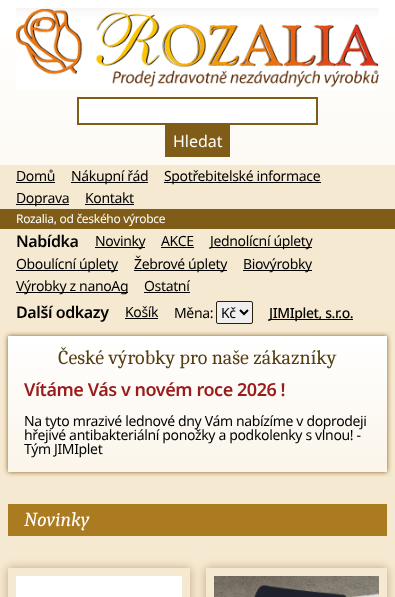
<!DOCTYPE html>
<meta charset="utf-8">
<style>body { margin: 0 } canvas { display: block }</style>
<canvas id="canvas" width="395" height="597"></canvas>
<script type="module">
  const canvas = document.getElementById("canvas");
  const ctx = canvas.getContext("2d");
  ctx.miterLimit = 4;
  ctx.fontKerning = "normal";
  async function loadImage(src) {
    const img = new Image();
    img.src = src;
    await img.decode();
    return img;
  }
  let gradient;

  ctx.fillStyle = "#ffffff";
  ctx.fillRect(0, 0, 395, 597);
  gradient = ctx.createLinearGradient(197, 0, 198, 328);
  gradient.addColorStop(0, "#ffffff");
  gradient.addColorStop(1, "#fbf5ea");
  ctx.fillStyle = gradient;
  ctx.fillRect(0, 38, 395, 127);
  ctx.drawImage(await loadImage("img1.png"), 16, 8, 363, 81);
  ctx.fillStyle = "#ffffff";
  ctx.beginPath();
  ctx.rect(78, 98, 239, 26);
  ctx.fill();
  ctx.strokeStyle = "#805c19";
  ctx.lineWidth = 2;
  ctx.stroke();
  ctx.fillStyle = "#805c19";
  ctx.fillRect(165, 125, 65, 32);
  ctx.font = "16px Noto Sans";
  ctx.fillStyle = "#ffffff";
  ctx.fillText("Hledat", 173, 147);
  ctx.fillStyle = "#f6e9d1";
  ctx.fillRect(0, 165, 395, 44);
  ctx.letterSpacing = "-0.35px";
  ctx.font = "14px Noto Sans";
  ctx.fillStyle = "#000000";
  ctx.fillText("Domů", 16, 181);
  ctx.fillRect(16, 182, 39, 1);
  ctx.fillRect(71, 182, 77, 1);
  ctx.fillText("Nákupní řád", 71, 181);
  ctx.fillRect(164, 182, 157, 1);
  ctx.fillText("Spotřebitelské informace", 164, 181);
  ctx.fillRect(16, 204, 53, 1);
  ctx.fillText("Doprava", 16, 203);
  ctx.fillText("Kontakt", 85, 203);
  ctx.fillRect(85, 204, 49, 1);
  ctx.fillStyle = "#805c19";
  ctx.fillRect(0, 209, 395, 20);
  ctx.letterSpacing = "-0.3px";
  ctx.font = "12px Noto Sans";
  ctx.fillStyle = "#ffffff";
  ctx.fillText("Rozalia, od českého výrobce", 16, 223);
  ctx.fillStyle = "#f6e9d1";
  ctx.fillRect(0, 229, 395, 368);
  ctx.letterSpacing = "-0.4px";
  ctx.font = "600 16px Noto Sans";
  ctx.fillStyle = "#000000";
  ctx.fillText("Nabídka", 16, 247);
  ctx.fillRect(95, 247, 50, 1);
  ctx.letterSpacing = "-0.35px";
  ctx.font = "14px Noto Sans";
  ctx.fillText("Novinky", 95, 246);
  ctx.fillText("AKCE", 161, 246);
  ctx.fillRect(161, 247, 33, 1);
  ctx.fillRect(210, 247, 102, 1);
  ctx.fillText("Jednolícní úplety", 210, 246);
  ctx.fillRect(16, 270, 102, 1);
  ctx.fillText("Oboulícní úplety", 16, 269);
  ctx.fillRect(134, 270, 93, 1);
  ctx.fillText("Žebrové úplety", 134, 269);
  ctx.fillRect(243, 270, 69, 1);
  ctx.fillText("Biovýrobky", 243, 269);
  ctx.fillRect(16, 292, 112, 1);
  ctx.fillText("Výrobky z nanoAg", 16, 291);
  ctx.fillText("Ostatní", 144, 291);
  ctx.fillRect(144, 292, 46, 1);
  ctx.letterSpacing = "-0.4px";
  ctx.font = "600 16px Noto Sans";
  ctx.fillText("Další odkazy", 16, 318);
  ctx.letterSpacing = "-0.35px";
  ctx.font = "14px Noto Sans";
  ctx.fillText("Košík", 125, 317);
  ctx.fillRect(125, 318, 33, 1);
  ctx.fillText("Měna:", 174, 318);
  ctx.fillStyle = "#efefef";
  ctx.beginPath();
  ctx.roundRect(216.5, 301.5, 36, 22, 1.5);
  ctx.fill();
  ctx.strokeStyle = "#2b1f08";
  ctx.lineWidth = 1;
  ctx.stroke();
  ctx.beginPath();
  ctx.moveTo(240, 310);
  ctx.lineTo(244, 314);
  ctx.lineTo(248, 310);
  ctx.strokeStyle = "#000000";
  ctx.lineWidth = 2;
  ctx.stroke();
  ctx.fillStyle = "#000000";
  ctx.fillText("Kč", 221, 318);
  ctx.fillRect(269, 319, 84, 1);
  ctx.letterSpacing = "-0.4px";
  ctx.font = "500 14px Noto Sans";
  ctx.fillText("JIMIplet, s.r.o.", 269, 318);
  ctx.fillStyle = "#805c19";
  ctx.filter = "blur(2.5px)";
  ctx.beginPath();
  ctx.rect(8, 336, 379, 136);
  ctx.fill();
  ctx.filter = "none";
  gradient = ctx.createLinearGradient(198, 336, 198, 472);
  gradient.addColorStop(0, "#ffffff");
  gradient.addColorStop(1, "#fbf5ea");
  ctx.fillStyle = gradient;
  ctx.fillRect(8, 336, 379, 136);
  ctx.letterSpacing = "0px";
  ctx.font = "20px Caladea";
  ctx.fillStyle = "#553d11";
  ctx.fillText("České výrobky pro naše zákazníky", 58, 364);
  ctx.letterSpacing = "-0.45px";
  ctx.font = "600 18px Noto Sans";
  ctx.fillStyle = "#991b1b";
  ctx.fillText("Vítáme Vás v novém roce 2026 !", 24, 396);
  ctx.letterSpacing = "-0.35px";
  ctx.font = "14px Noto Sans";
  ctx.fillStyle = "#000000";
  ctx.fillText("Na tyto mrazivé lednové dny Vám nabízíme v doprodeji", 24, 426);
  ctx.fillText("hřejivé antibakteriální ponožky a podkolenky s vlnou! -", 24, 440);
  ctx.fillText("Tým JIMIplet", 24, 454);
  ctx.fillStyle = "#ab7b21";
  ctx.fillRect(8, 504, 379, 32);
  ctx.letterSpacing = "0px";
  ctx.font = "italic 20px Caladea";
  ctx.fillStyle = "#ffffff";
  ctx.fillText("Novinky", 24, 526);
  ctx.save();
  ctx.beginPath();
  ctx.moveTo(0, 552);
  ctx.lineTo(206, 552);
  ctx.lineTo(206, 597);
  ctx.lineTo(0, 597);
  ctx.closePath();
  ctx.moveTo(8, 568);
  ctx.lineTo(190, 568);
  ctx.lineTo(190, 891);
  ctx.lineTo(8, 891);
  ctx.closePath();
  ctx.clip("evenodd");
  ctx.fillStyle = "rgba(128, 92, 25, 0.47)";
  ctx.filter = "blur(5px)";
  ctx.beginPath();
  ctx.rect(8, 568, 182, 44);
  ctx.fill();
  ctx.filter = "none";
  ctx.restore();
  ctx.fillRect(16, 576, 166, 21);
  ctx.save();
  ctx.beginPath();
  ctx.moveTo(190, 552);
  ctx.lineTo(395, 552);
  ctx.lineTo(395, 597);
  ctx.lineTo(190, 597);
  ctx.closePath();
  ctx.moveTo(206, 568);
  ctx.lineTo(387, 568);
  ctx.lineTo(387, 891);
  ctx.lineTo(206, 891);
  ctx.closePath();
  ctx.clip("evenodd");
  ctx.fillStyle = "rgba(128, 92, 25, 0.47)";
  ctx.filter = "blur(5px)";
  ctx.beginPath();
  ctx.rect(206, 568, 181, 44);
  ctx.fill();
  ctx.filter = "none";
  ctx.restore();
  ctx.drawImage(await loadImage("img2.png"), 214, 576, 165, 21);
</script>
